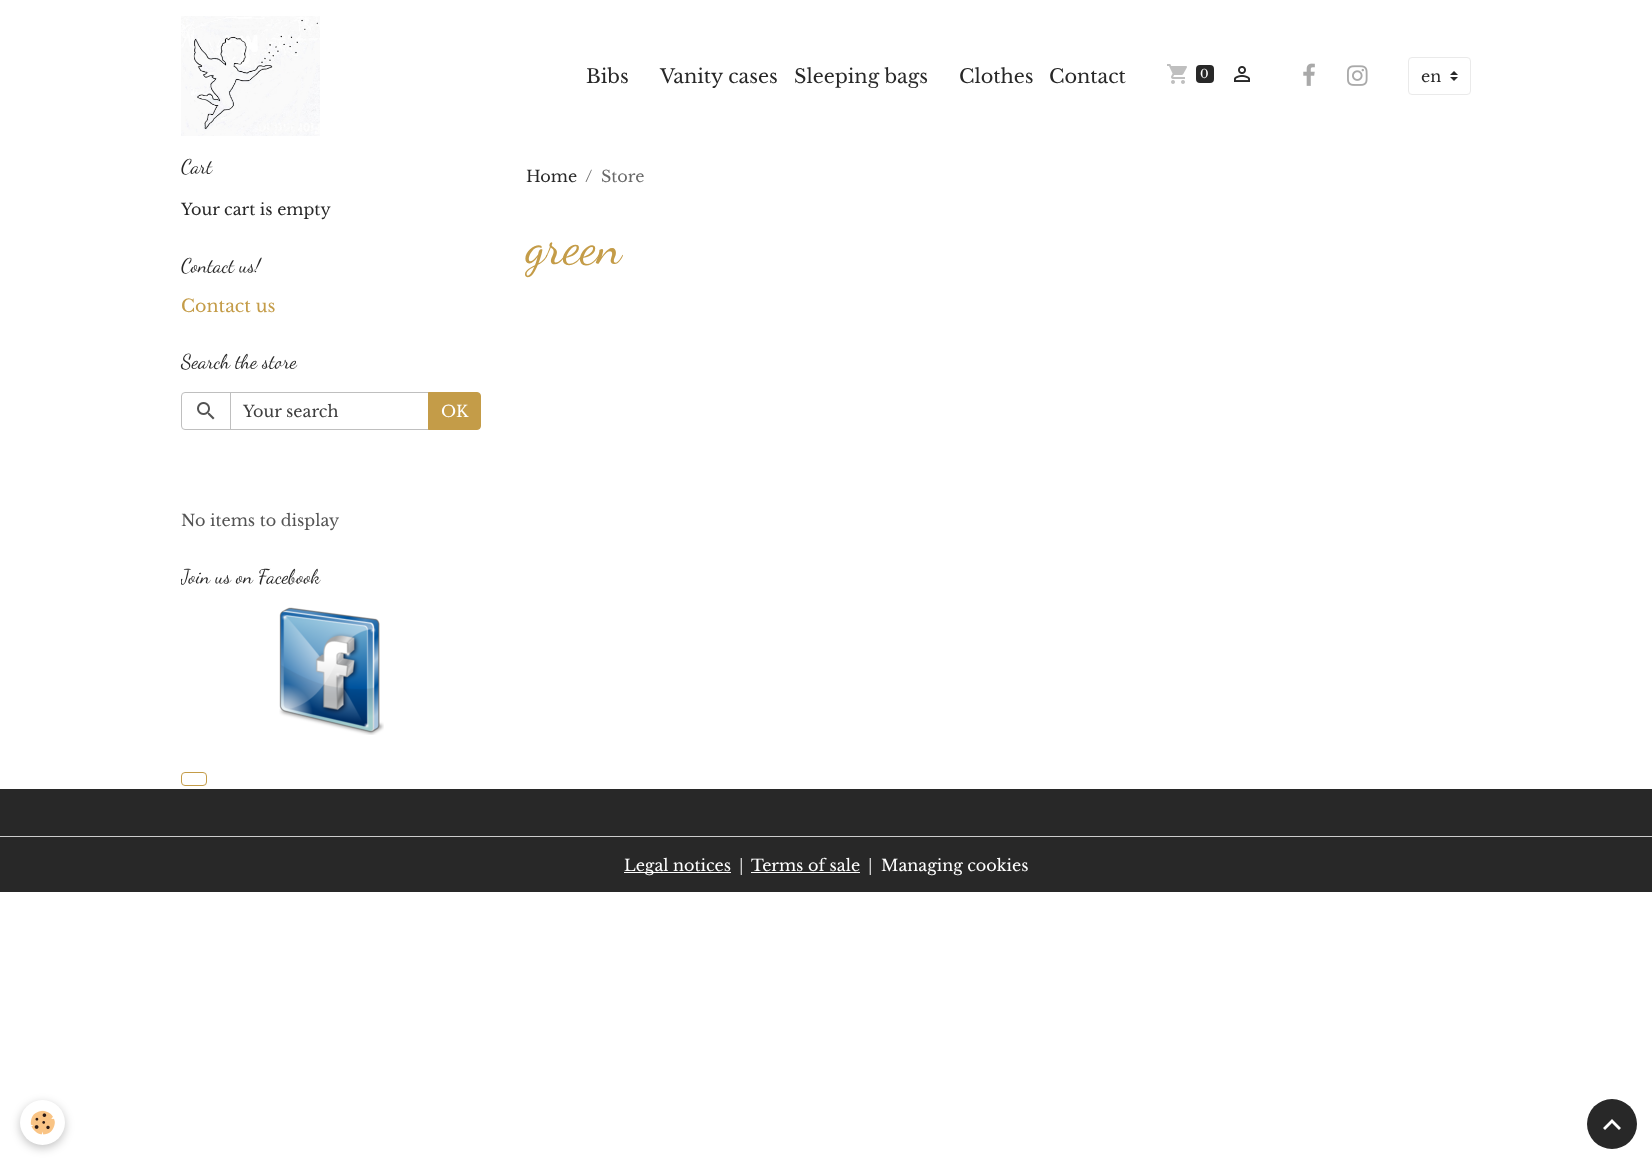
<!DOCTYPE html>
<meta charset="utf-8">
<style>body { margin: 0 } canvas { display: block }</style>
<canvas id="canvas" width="1652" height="1164"></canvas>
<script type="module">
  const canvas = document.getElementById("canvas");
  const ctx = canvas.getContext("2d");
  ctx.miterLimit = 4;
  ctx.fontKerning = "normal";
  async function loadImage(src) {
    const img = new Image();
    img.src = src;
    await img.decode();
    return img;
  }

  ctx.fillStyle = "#ffffff";
  ctx.fillRect(0, 0, 1652, 1164);
  ctx.drawImage(await loadImage("img1.png"), 181, 16, 139, 120);
  ctx.font = "19.25px Libre Baskerville";
  ctx.fillStyle = "#282828";
  ctx.fillText("Bibs", 586, 83);
  ctx.fillText("Vanity cases", 660, 83);
  ctx.fillText("Sleeping bags", 794, 83);
  ctx.fillText("Clothes", 959, 83);
  ctx.fillText("Contact", 1049, 83);
  ctx.drawImage(await loadImage("img2.png"), 1167, 64, 20, 20);
  ctx.beginPath();
  ctx.roundRect(1196, 65, 18, 18, 4);
  ctx.fill();
  ctx.font = "12px Libre Baskerville";
  ctx.fillStyle = "#ffffff";
  ctx.fillText("0", 1200, 78);
  ctx.drawImage(await loadImage("img3.png"), 1234, 66, 16, 16);
  ctx.drawImage(await loadImage("img4.png"), 1303, 63, 12, 23);
  ctx.drawImage(await loadImage("img5.png"), 1347, 65, 21, 21);
  ctx.drawImage(await loadImage("img6.png"), 1450, 71, 8, 10);
  ctx.beginPath();
  ctx.roundRect(1408.5, 57.5, 62, 37, 3.5);
  ctx.strokeStyle = "#eaeaea";
  ctx.stroke();
  ctx.font = "16px Libre Baskerville";
  ctx.fillStyle = "#282828";
  ctx.fillText("en", 1421, 82);
  ctx.font = "20px Dancing Script";
  ctx.fillText("Cart", 181, 173);
  ctx.font = "16px Libre Baskerville";
  ctx.fillText("Your cart is empty", 181, 215);
  ctx.font = "20px Dancing Script";
  ctx.fillText("Contact us!", 181, 272);
  ctx.font = "17.5px Libre Baskerville";
  ctx.fillStyle = "#c49c48";
  ctx.fillText("Contact us", 181, 312);
  ctx.font = "20px Dancing Script";
  ctx.fillStyle = "#282828";
  ctx.fillText("Search the store", 181, 368);
  ctx.beginPath();
  ctx.roundRect(181.5, 392.5, 49, 37, [3.5, 0, 0, 3.5]);
  ctx.strokeStyle = "#bfbfbf";
  ctx.stroke();
  ctx.drawImage(await loadImage("img7.png"), 197, 402, 18, 18);
  ctx.strokeRect(230.5, 392.5, 198, 37);
  ctx.font = "16px Libre Baskerville";
  ctx.fillStyle = "#3e3e3e";
  ctx.fillText("Your search", 243, 417);
  ctx.fillStyle = "#c49c48";
  ctx.beginPath();
  ctx.roundRect(428.5, 392.5, 52, 37, [0, 3.5, 3.5, 0]);
  ctx.fill();
  ctx.strokeStyle = "#c49c48";
  ctx.stroke();
  ctx.fillStyle = "#ffffff";
  ctx.fillText("OK", 441, 417);
  ctx.fillStyle = "#535353";
  ctx.fillText("No items to display", 181, 526);
  ctx.save();
  ctx.beginPath();
  ctx.rect(181, 562, 300, 173);
  ctx.clip();
  ctx.font = "20px Dancing Script";
  ctx.fillStyle = "#282828";
  ctx.fillText("Join us on Facebook", 181, 583);
  ctx.restore();
  ctx.drawImage(await loadImage("img8.png"), 279, 607, 105, 128);
  ctx.beginPath();
  ctx.roundRect(181.5, 772.5, 25, 13, 3.5);
  ctx.stroke();
  ctx.fillStyle = "#282828";
  ctx.fillText("Home", 526, 182);
  ctx.fillStyle = "#696969";
  ctx.fillText("/", 585, 182);
  ctx.fillText("Store", 601, 182);
  ctx.font = "51px Dancing Script";
  ctx.fillStyle = "#c49c48";
  ctx.fillText("green", 526, 263);
  ctx.fillStyle = "#282828";
  ctx.fillRect(0, 789, 1652, 103);
  ctx.fillStyle = "#cccccc";
  ctx.fillRect(0, 836, 1652, 1);
  ctx.fillStyle = "#ffffff";
  ctx.fillRect(624, 872, 107, 1);
  ctx.font = "16px Libre Baskerville";
  ctx.fillText("Legal notices", 624, 871);
  ctx.fillStyle = "#d4d4d4";
  ctx.fillText("|", 739, 871);
  ctx.fillStyle = "#ffffff";
  ctx.fillText("Terms of sale", 751, 871);
  ctx.fillRect(751, 872, 109, 1);
  ctx.fillStyle = "#d4d4d4";
  ctx.fillText("|", 868, 871);
  ctx.fillStyle = "#ffffff";
  ctx.fillText("Managing cookies", 881, 871);
  ctx.fillStyle = "rgba(0, 0, 0, 0.24)";
  ctx.filter = "blur(5px)";
  ctx.beginPath();
  ctx.roundRect(20, 1103, 45, 45, 22.5);
  ctx.fill();
  ctx.filter = "none";
  ctx.fillStyle = "#ffffff";
  ctx.beginPath();
  ctx.arc(42.5, 1122.5, 22.5, 0, Math.PI * 2);
  ctx.fill();
  ctx.drawImage(await loadImage("img9.png"), 30, 1110, 25, 25);
  ctx.fillStyle = "#282828";
  ctx.beginPath();
  ctx.arc(1612, 1124, 25, 0, Math.PI * 2);
  ctx.fill();
  ctx.fillStyle = "#ffffff";
  ctx.beginPath();
  ctx.moveTo(1612, 1119);
  ctx.lineTo(1621, 1128);
  ctx.lineTo(1619, 1130);
  ctx.lineTo(1612, 1123);
  ctx.lineTo(1605, 1130);
  ctx.lineTo(1603, 1128);
  ctx.closePath();
  ctx.fill();
</script>
